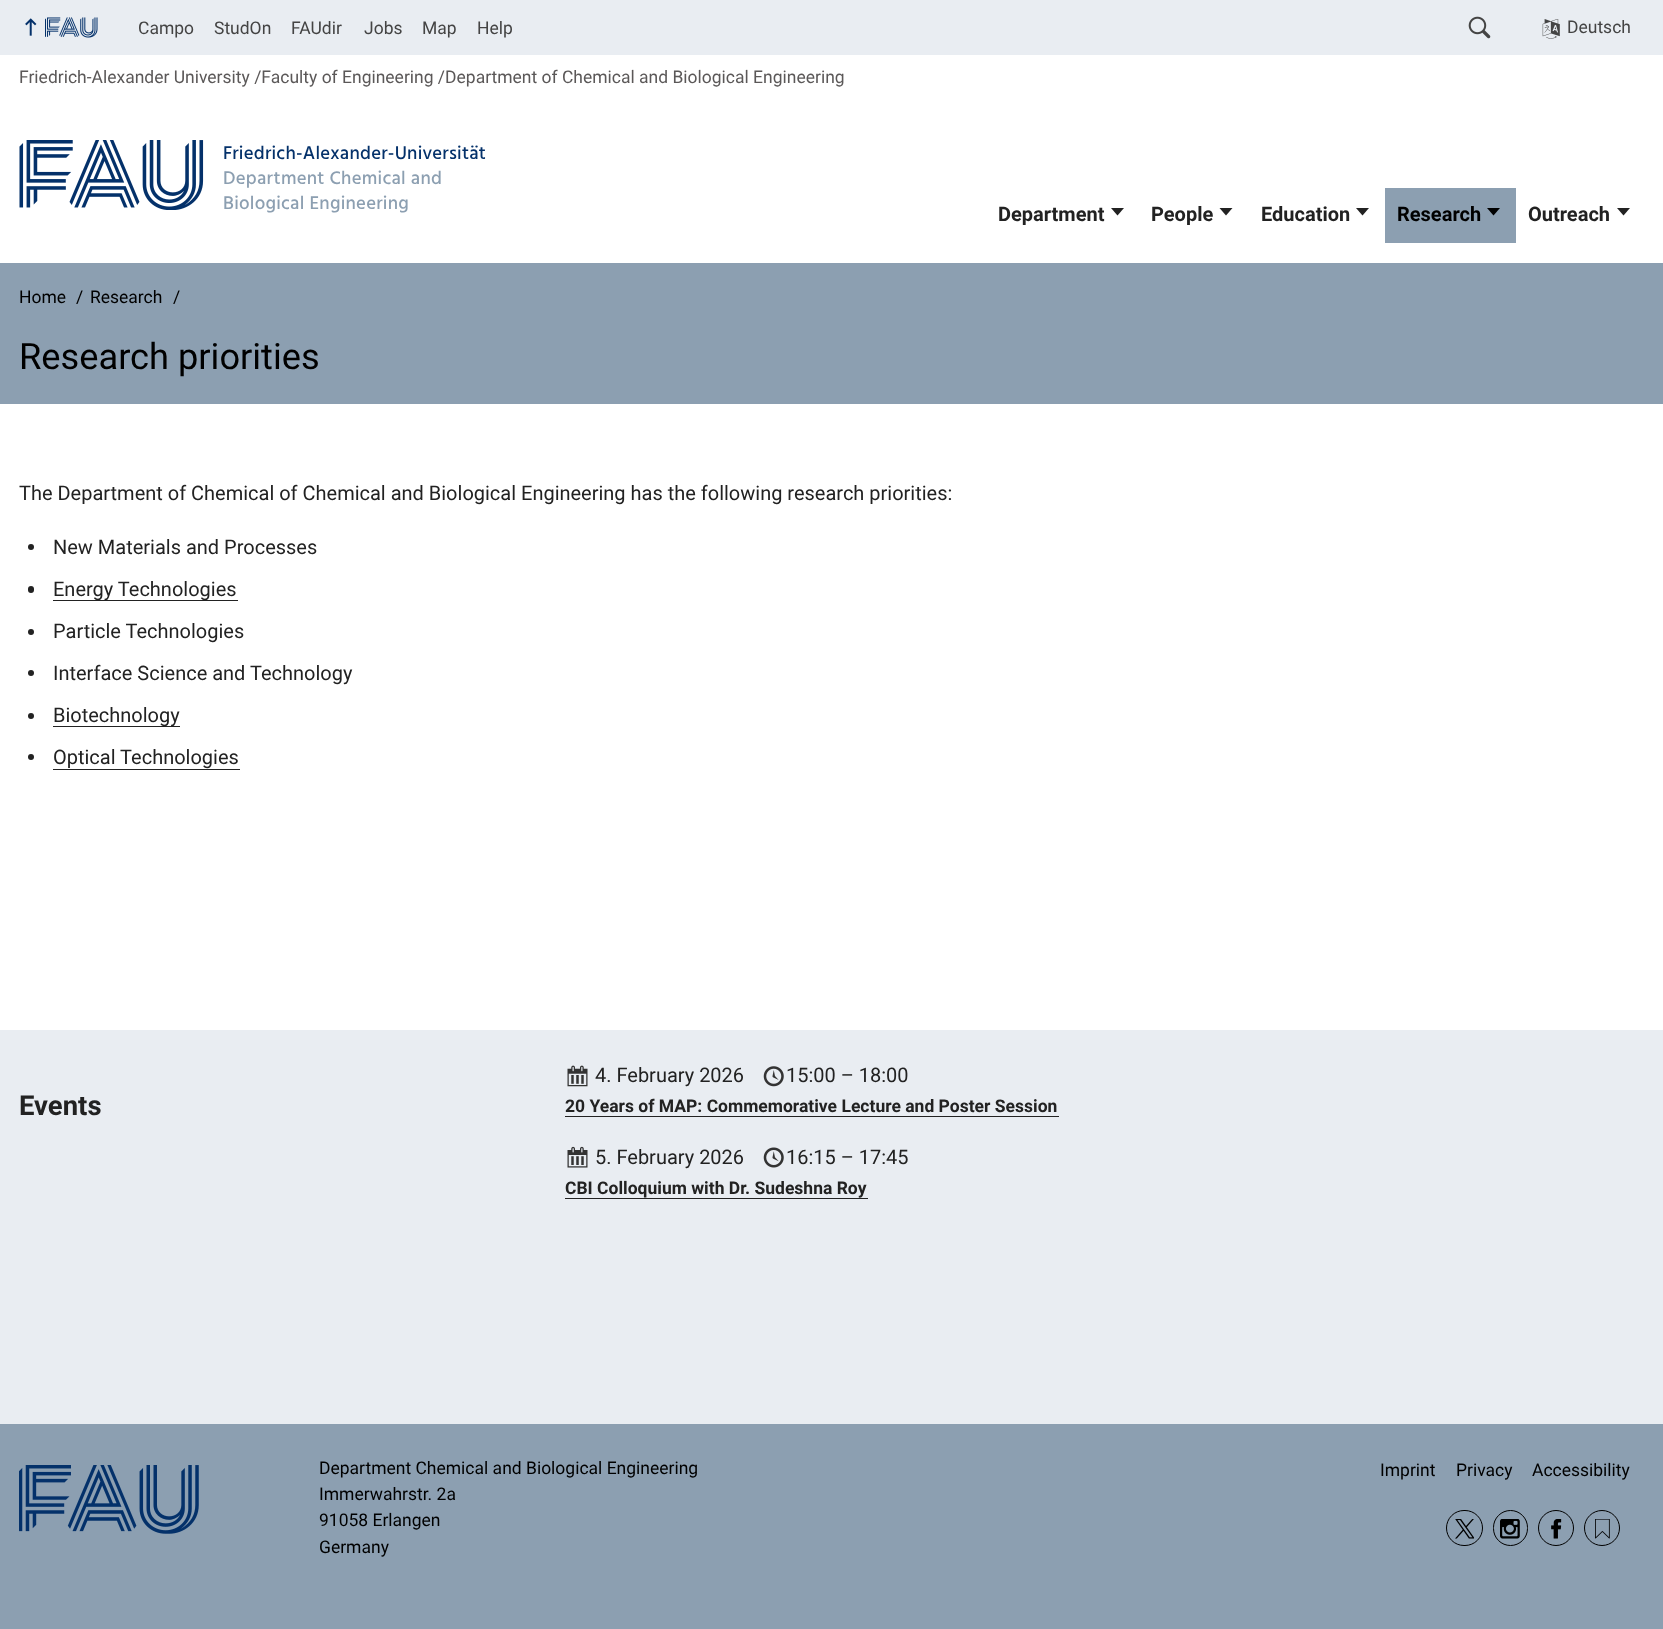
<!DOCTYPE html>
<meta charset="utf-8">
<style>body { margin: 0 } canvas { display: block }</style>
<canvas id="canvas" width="1663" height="1629"></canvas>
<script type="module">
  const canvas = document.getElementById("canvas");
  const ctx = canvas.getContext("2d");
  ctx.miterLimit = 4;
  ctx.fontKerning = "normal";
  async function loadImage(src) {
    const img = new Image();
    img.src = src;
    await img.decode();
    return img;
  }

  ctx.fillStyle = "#ffffff";
  ctx.fillRect(0, 0, 1663, 1629);
  ctx.fillStyle = "#e9edf2";
  ctx.fillRect(0, 0, 1663, 55);
  ctx.drawImage(await loadImage("img1.png"), 25, 18, 12, 18);
  ctx.drawImage(await loadImage("img2.png"), 45, 17, 53, 21);
  ctx.font = "17.5px Roboto";
  ctx.fillStyle = "#444444";
  ctx.fillText("Campo", 138, 34);
  ctx.fillText("StudOn", 214, 34);
  ctx.fillText("FAUdir", 291, 34);
  ctx.fillText("Jobs", 364, 34);
  ctx.fillText("Map", 422, 34);
  ctx.fillText("Help", 477, 34);
  ctx.drawImage(await loadImage("img3.png"), 1468, 16, 23, 23);
  ctx.drawImage(await loadImage("img4.png"), 1542, 19, 18, 20);
  ctx.fillText("Deutsch", 1567, 33);
  ctx.fillStyle = "#5b5858";
  ctx.fillText("Friedrich-Alexander University /Faculty of Engineering /Department of Chemical and Biological Engineering", 19, 83);
  ctx.drawImage(await loadImage("img5.png"), 19, 140, 185, 70);
  ctx.letterSpacing = "0.25px";
  ctx.font = "500 18.75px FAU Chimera";
  ctx.fillStyle = "#04316a";
  ctx.fillText("Friedrich-Alexander-Universität", 223, 159);
  ctx.fillStyle = "#8c9fb1";
  ctx.fillText("Department Chemical and", 223, 184);
  ctx.fillText("Biological Engineering", 223, 209);
  ctx.letterSpacing = "0px";
  ctx.font = "bold 20px Roboto";
  ctx.fillStyle = "#222222";
  ctx.fillText("Department", 998, 221);
  ctx.beginPath();
  ctx.moveTo(1111, 208);
  ctx.lineTo(1117.5, 215.5);
  ctx.lineTo(1124, 208);
  ctx.closePath();
  ctx.fill();
  ctx.fillText("People", 1151, 221);
  ctx.beginPath();
  ctx.moveTo(1219.5, 208);
  ctx.lineTo(1226, 215.5);
  ctx.lineTo(1232.5, 208);
  ctx.closePath();
  ctx.fill();
  ctx.fillText("Education", 1261, 221);
  ctx.beginPath();
  ctx.moveTo(1356, 208);
  ctx.lineTo(1362.5, 215.5);
  ctx.lineTo(1369, 208);
  ctx.closePath();
  ctx.fill();
  ctx.fillStyle = "#8c9fb1";
  ctx.fillRect(1385, 188, 131, 55);
  ctx.fillStyle = "#000000";
  ctx.fillText("Research", 1397, 221);
  ctx.beginPath();
  ctx.moveTo(1487, 208);
  ctx.lineTo(1493.5, 215.5);
  ctx.lineTo(1500, 208);
  ctx.closePath();
  ctx.fill();
  ctx.fillStyle = "#222222";
  ctx.fillText("Outreach", 1528, 221);
  ctx.beginPath();
  ctx.moveTo(1617, 208);
  ctx.lineTo(1623.5, 215.5);
  ctx.lineTo(1630, 208);
  ctx.closePath();
  ctx.fill();
  ctx.fillStyle = "#8c9fb1";
  ctx.fillRect(0, 263, 1663, 141);
  ctx.font = "17.5px Roboto";
  ctx.fillStyle = "#000000";
  ctx.fillText("Home", 19, 303);
  ctx.fillText("/", 76, 303);
  ctx.fillText("Research", 90, 303);
  ctx.fillText("/", 173, 303);
  ctx.font = "36.25px Roboto";
  ctx.fillText("Research priorities", 19, 369);
  ctx.font = "20px Roboto";
  ctx.fillStyle = "#222222";
  ctx.fillText("The Department of Chemical of Chemical and Biological Engineering has the following research priorities:", 19, 500);
  ctx.beginPath();
  ctx.arc(31, 547, 3, 0, Math.PI * 2);
  ctx.fill();
  ctx.fillText("New Materials and Processes", 53, 554);
  ctx.beginPath();
  ctx.roundRect(28, 586, 6, 7, 3);
  ctx.fill();
  ctx.fillRect(53, 600, 185, 1);
  ctx.fillText("Energy Technologies", 53, 596);
  ctx.beginPath();
  ctx.arc(31, 632, 3, 0, Math.PI * 2);
  ctx.fill();
  ctx.fillText("Particle Technologies", 53, 638);
  ctx.beginPath();
  ctx.arc(31, 673, 3, 0, Math.PI * 2);
  ctx.fill();
  ctx.fillText("Interface Science and Technology", 53, 680);
  ctx.beginPath();
  ctx.arc(31, 716, 3, 0, Math.PI * 2);
  ctx.fill();
  ctx.fillRect(53, 726, 127, 1);
  ctx.fillText("Biotechnology", 53, 722);
  ctx.beginPath();
  ctx.arc(31, 757, 3, 0, Math.PI * 2);
  ctx.fill();
  ctx.fillText("Optical Technologies", 53, 764);
  ctx.fillRect(53, 769, 187, 1);
  ctx.fillStyle = "#e9edf2";
  ctx.fillRect(0, 1030, 1663, 394);
  ctx.font = "bold 27.5px Roboto";
  ctx.fillStyle = "#222222";
  ctx.fillText("Events", 19, 1115);
  ctx.drawImage(await loadImage("img6.png"), 567, 1065, 21, 22);
  ctx.font = "20px Roboto";
  ctx.fillText("4. February 2026", 595, 1082);
  ctx.drawImage(await loadImage("img7.png"), 763, 1066, 21, 21);
  ctx.fillText("15:00 – 18:00", 786, 1082);
  ctx.font = "bold 17.5px Roboto";
  ctx.fillText("20 Years of MAP: Commemorative Lecture and Poster Session", 565, 1112);
  ctx.fillRect(565, 1116, 494, 1);
  ctx.drawImage(await loadImage("img8.png"), 567, 1146, 21, 22);
  ctx.font = "20px Roboto";
  ctx.fillText("5. February 2026", 595, 1164);
  ctx.drawImage(await loadImage("img9.png"), 763, 1147, 21, 21);
  ctx.fillText("16:15 – 17:45", 786, 1164);
  ctx.font = "bold 17.5px Roboto";
  ctx.fillText("CBI Colloquium with Dr. Sudeshna Roy", 565, 1194);
  ctx.fillRect(565, 1198, 303, 1);
  ctx.fillStyle = "#8c9fb1";
  ctx.fillRect(0, 1424, 1663, 205);
  ctx.drawImage(await loadImage("img10.png"), 19, 1465, 180, 69);
  ctx.font = "17.5px Roboto";
  ctx.fillStyle = "#000000";
  ctx.fillText("Department Chemical and Biological Engineering", 319, 1474);
  ctx.fillText("Immerwahrstr. 2a", 319, 1500);
  ctx.fillText("91058 Erlangen", 319, 1526);
  ctx.fillText("Germany", 319, 1553);
  ctx.fillText("Imprint", 1380, 1476);
  ctx.fillText("Privacy", 1456, 1476);
  ctx.fillText("Accessibility", 1532, 1476);
  ctx.beginPath();
  ctx.roundRect(1446.5, 1510.5, 36, 35, 17.5);
  ctx.strokeStyle = "#000000";
  ctx.stroke();
  ctx.drawImage(await loadImage("img11.png"), 1455, 1519, 19, 20);
  ctx.beginPath();
  ctx.roundRect(1493.5, 1510.5, 34, 35, 17);
  ctx.stroke();
  ctx.drawImage(await loadImage("img12.png"), 1500, 1519, 20, 20);
  ctx.beginPath();
  ctx.arc(1556, 1528, 17.5, 0, Math.PI * 2);
  ctx.stroke();
  ctx.drawImage(await loadImage("img13.png"), 1551, 1519, 11, 20);
  ctx.beginPath();
  ctx.arc(1602, 1528, 17.5, 0, Math.PI * 2);
  ctx.stroke();
  ctx.drawImage(await loadImage("img14.png"), 1595, 1519, 15, 20);
</script>
